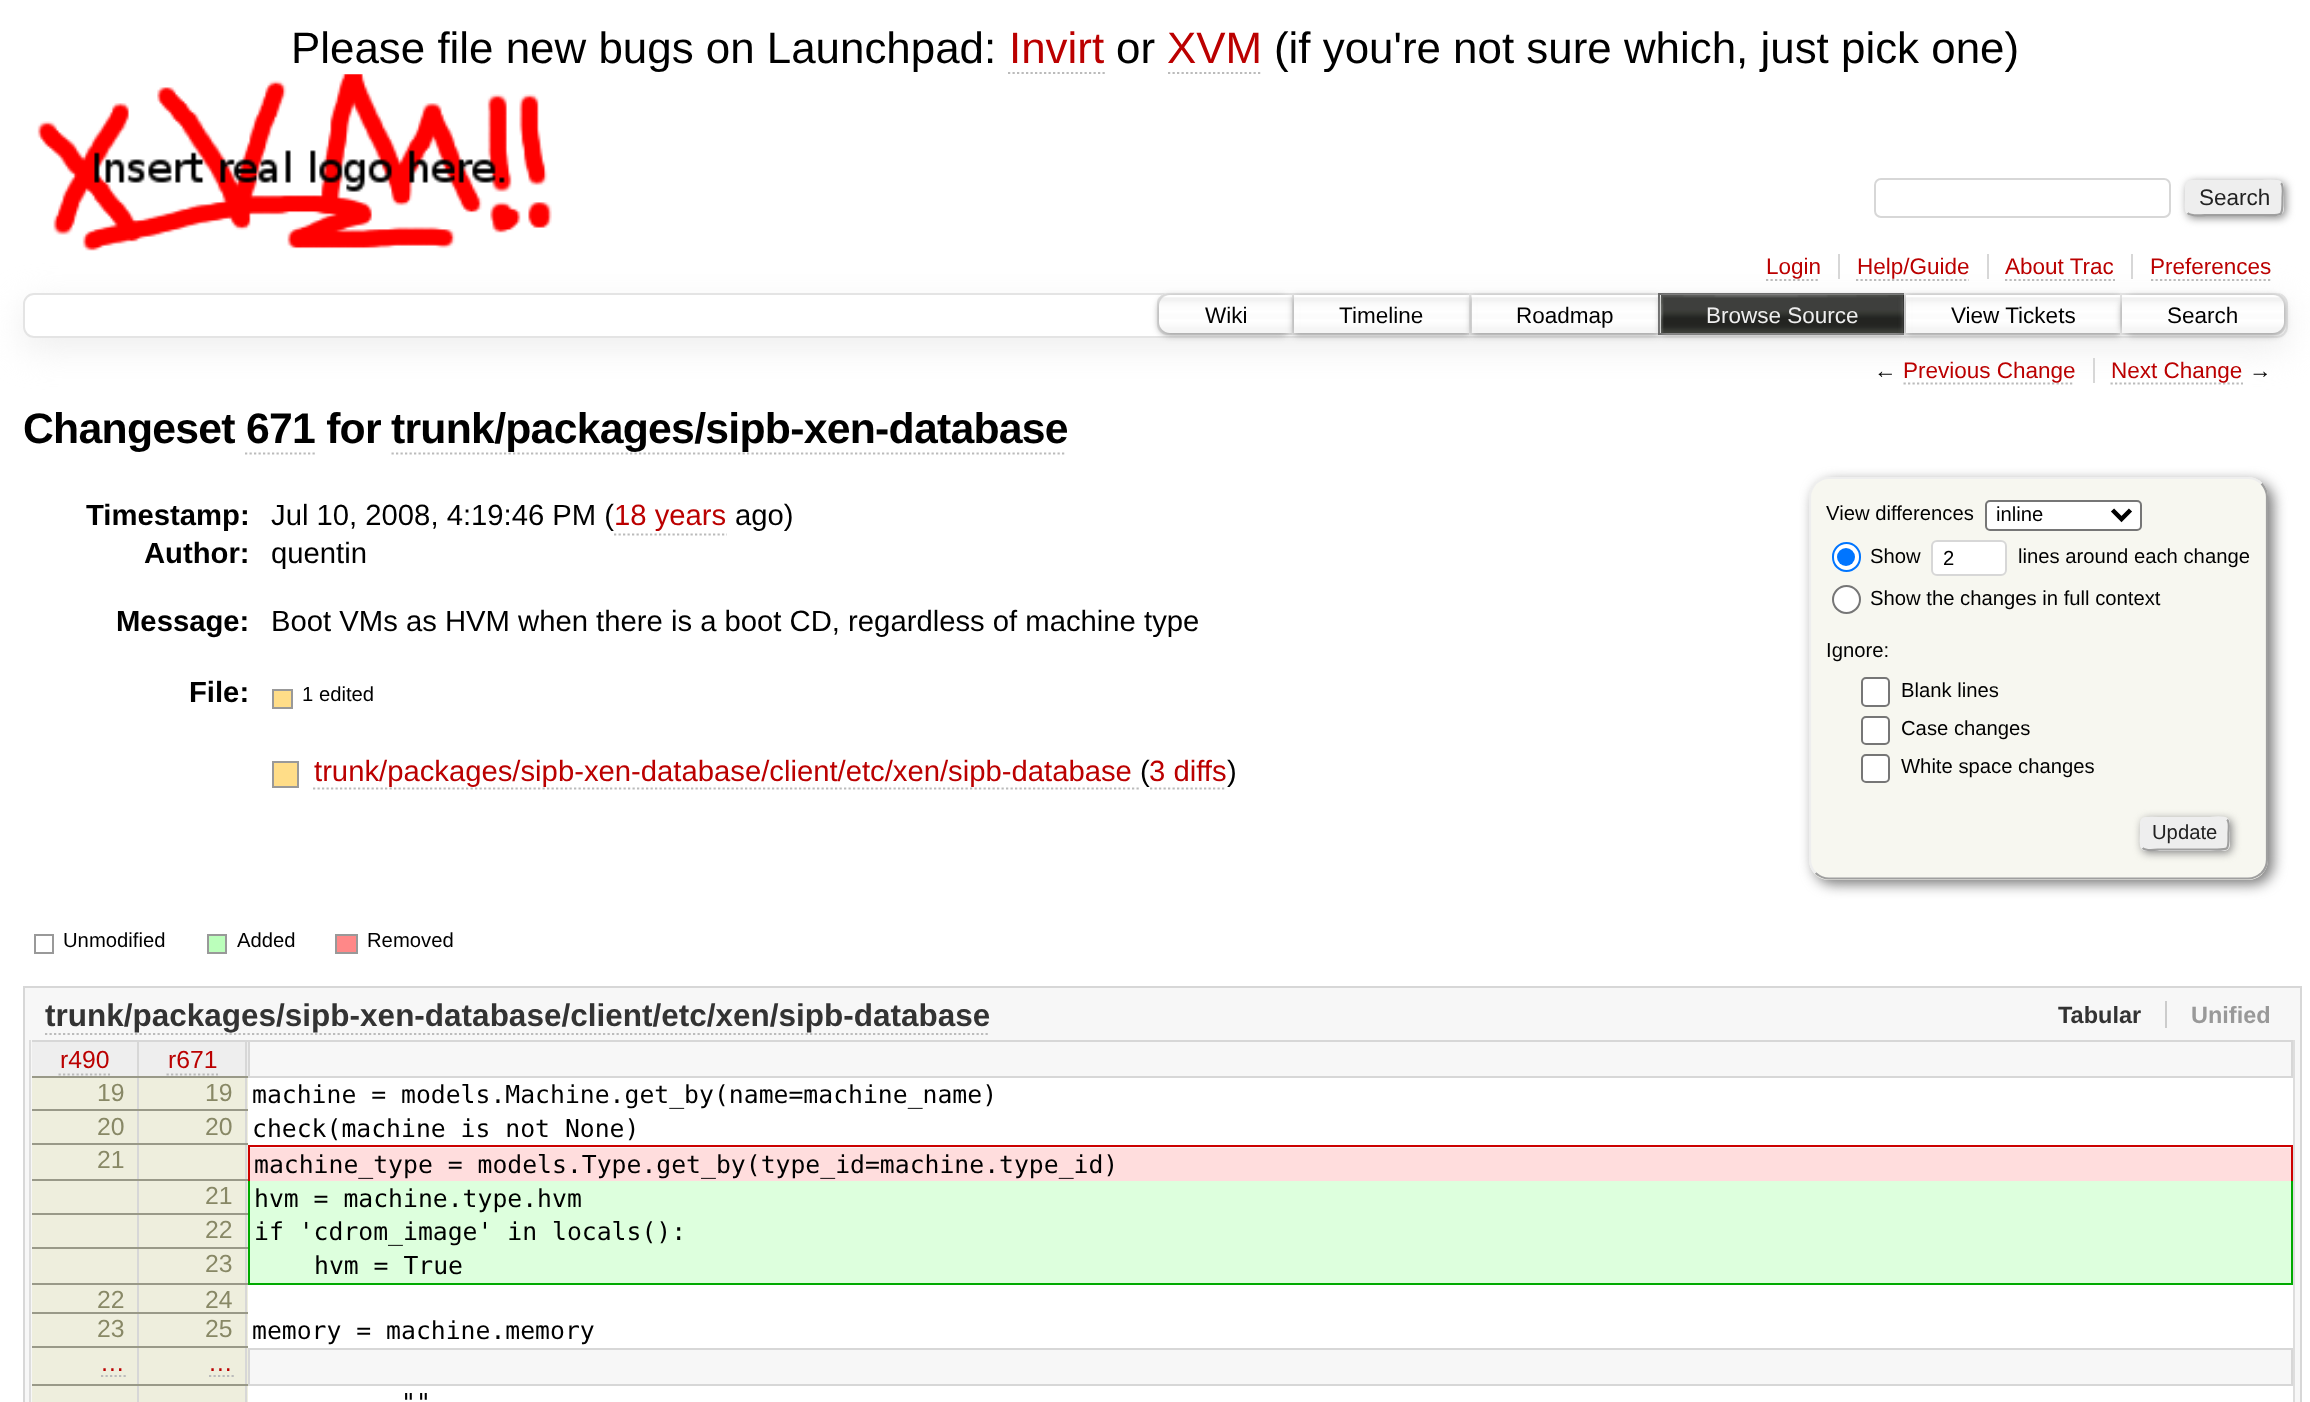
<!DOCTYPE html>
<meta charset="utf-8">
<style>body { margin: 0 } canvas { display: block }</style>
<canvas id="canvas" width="2310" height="1402"></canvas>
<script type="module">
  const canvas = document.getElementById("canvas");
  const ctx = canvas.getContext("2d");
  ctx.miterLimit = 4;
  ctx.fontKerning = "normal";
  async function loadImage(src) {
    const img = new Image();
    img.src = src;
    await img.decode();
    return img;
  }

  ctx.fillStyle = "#ffffff";
  ctx.fillRect(0, 0, 2310, 1402);
  ctx.font = "43.9px Liberation Sans";
  ctx.fillStyle = "#000000";
  ctx.fillText("Please file new bugs on Launchpad:", 291, 63);
  ctx.fillStyle = "#bb0000";
  ctx.fillText("Invirt", 1009, 63);
  ctx.beginPath();
  ctx.moveTo(1008, 73);
  ctx.lineTo(1105, 73);
  ctx.strokeStyle = "#bbbbbb";
  ctx.lineWidth = 2.2;
  ctx.setLineDash([2.25, 2.25]);
  ctx.stroke();
  ctx.fillStyle = "#000000";
  ctx.fillText("or", 1116, 63);
  ctx.fillStyle = "#bb0000";
  ctx.fillText("XVM", 1167, 63);
  ctx.beginPath();
  ctx.moveTo(1168, 73);
  ctx.lineTo(1262, 73);
  ctx.stroke();
  ctx.fillStyle = "#000000";
  ctx.fillText("(if you're not sure which, just pick one)", 1274, 63);
  ctx.drawImage(await loadImage("img1.png"), 37, 74, 515, 177);
  ctx.beginPath();
  ctx.roundRect(1875, 179, 295, 38, 6);
  ctx.strokeStyle = "#d7d7d7";
  ctx.lineWidth = 2;
  ctx.setLineDash([]);
  ctx.stroke();
  ctx.fillStyle = "#888888";
  ctx.filter = "blur(4.5px)";
  ctx.beginPath();
  ctx.roundRect(2187, 182, 99, 36, 7);
  ctx.fill();
  ctx.filter = "none";
  ctx.fillStyle = "#eeeeee";
  ctx.beginPath();
  ctx.roundRect(2185, 180, 99, 36, 7);
  ctx.fill();
  ctx.beginPath();
  ctx.moveTo(2281, 183);
  ctx.bezierCurveTo(2284, 186, 2282.5, 194, 2282.5, 198);
  ctx.bezierCurveTo(2282.5, 217.5, 2283.5, 215, 2263, 215);
  ctx.lineTo(2206, 215);
  ctx.bezierCurveTo(2204.5, 215, 2191.5, 217, 2187.5, 213);
  ctx.strokeStyle = "#9f9f9f";
  ctx.lineWidth = 2.2;
  ctx.stroke();
  ctx.beginPath();
  ctx.moveTo(2187.5, 213);
  ctx.bezierCurveTo(2184.5, 210, 2186, 202, 2186, 198);
  ctx.bezierCurveTo(2186, 178.5, 2185, 181, 2206, 181);
  ctx.lineTo(2263, 181);
  ctx.bezierCurveTo(2264, 181, 2277, 179, 2281, 183);
  ctx.strokeStyle = "#eeeeee";
  ctx.stroke();
  ctx.font = "22.5px Liberation Sans";
  ctx.fillStyle = "#222222";
  ctx.fillText("Search", 2199, 205);
  ctx.save();
  ctx.beginPath();
  ctx.moveTo(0, 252);
  ctx.lineTo(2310, 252);
  ctx.lineTo(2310, 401);
  ctx.lineTo(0, 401);
  ctx.closePath();
  ctx.moveTo(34, 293);
  ctx.lineTo(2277, 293);
  ctx.bezierCurveTo(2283, 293, 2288, 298, 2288, 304);
  ctx.lineTo(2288, 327);
  ctx.bezierCurveTo(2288, 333, 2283, 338, 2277, 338);
  ctx.lineTo(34, 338);
  ctx.bezierCurveTo(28, 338, 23, 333, 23, 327);
  ctx.lineTo(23, 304);
  ctx.bezierCurveTo(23, 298, 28, 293, 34, 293);
  ctx.closePath();
  ctx.clip("evenodd");
  ctx.fillStyle = "#eeeeee";
  ctx.filter = "blur(17px)";
  ctx.beginPath();
  ctx.roundRect(23, 304, 2265, 45, 11);
  ctx.fill();
  ctx.filter = "none";
  ctx.restore();
  ctx.fillStyle = "#d7d7d7";
  ctx.fillRect(1838, 254, 2, 25);
  ctx.beginPath();
  ctx.moveTo(1766, 280);
  ctx.lineTo(1820, 280);
  ctx.strokeStyle = "#bbbbbb";
  ctx.setLineDash([2.25, 2.25]);
  ctx.stroke();
  ctx.fillStyle = "#bb0000";
  ctx.fillText("Login", 1766, 274);
  ctx.fillStyle = "#d7d7d7";
  ctx.fillRect(1987, 254, 2, 25);
  ctx.beginPath();
  ctx.moveTo(1856, 280);
  ctx.lineTo(1969, 280);
  ctx.stroke();
  ctx.fillStyle = "#bb0000";
  ctx.fillText("Help/Guide", 1857, 274);
  ctx.fillStyle = "#d7d7d7";
  ctx.fillRect(2131, 254, 2, 25);
  ctx.fillStyle = "#bb0000";
  ctx.fillText("About Trac", 2005, 274);
  ctx.beginPath();
  ctx.moveTo(2005, 280);
  ctx.lineTo(2115, 280);
  ctx.stroke();
  ctx.fillText("Preferences", 2150, 274);
  ctx.beginPath();
  ctx.moveTo(2151, 280);
  ctx.lineTo(2272.5, 280);
  ctx.stroke();
  ctx.beginPath();
  ctx.roundRect(24, 294, 2263, 43, 10);
  ctx.strokeStyle = "#e4e4e4";
  ctx.lineWidth = 2;
  ctx.setLineDash([]);
  ctx.stroke();
  ctx.fillStyle = "#ffffff";
  ctx.beginPath();
  ctx.roundRect(1157, 293, 137, 42, [11, 0, 0, 11]);
  ctx.fill();
  ctx.drawImage(await loadImage("img2.png"), 1157, 297, 135, 38);
  ctx.beginPath();
  ctx.roundRect(1158, 294, 135, 40, [10, 0, 0, 10]);
  ctx.stroke();
  ctx.save();
  ctx.beginPath();
  ctx.moveTo(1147, 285);
  ctx.lineTo(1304, 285);
  ctx.lineTo(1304, 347);
  ctx.lineTo(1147, 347);
  ctx.closePath();
  ctx.moveTo(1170, 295);
  ctx.lineTo(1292, 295);
  ctx.lineTo(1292, 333);
  ctx.lineTo(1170, 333);
  ctx.bezierCurveTo(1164, 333, 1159, 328, 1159, 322);
  ctx.lineTo(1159, 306);
  ctx.bezierCurveTo(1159, 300, 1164, 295, 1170, 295);
  ctx.closePath();
  ctx.clip("evenodd");
  ctx.fillStyle = "#999999";
  ctx.filter = "blur(3.5px)";
  ctx.beginPath();
  ctx.roundRect(1159, 297, 133, 38, 11);
  ctx.fill();
  ctx.filter = "none";
  ctx.restore();
  ctx.fillStyle = "#000000";
  ctx.fillText("Wiki", 1205, 323);
  ctx.fillStyle = "#ffffff";
  ctx.fillRect(1294, 297, 5, 36);
  ctx.drawImage(await loadImage("img3.png"), 1291, 297, 178, 36);
  ctx.strokeRect(1293, 294, 178, 40);
  ctx.save();
  ctx.beginPath();
  ctx.moveTo(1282, 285);
  ctx.lineTo(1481, 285);
  ctx.lineTo(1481, 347);
  ctx.lineTo(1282, 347);
  ctx.closePath();
  ctx.moveTo(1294, 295);
  ctx.lineTo(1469, 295);
  ctx.lineTo(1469, 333);
  ctx.lineTo(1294, 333);
  ctx.closePath();
  ctx.clip("evenodd");
  ctx.fillStyle = "#999999";
  ctx.filter = "blur(3.5px)";
  ctx.beginPath();
  ctx.rect(1294, 297, 175, 38);
  ctx.fill();
  ctx.filter = "none";
  ctx.restore();
  ctx.fillStyle = "#000000";
  ctx.fillText("Timeline", 1339, 323);
  ctx.fillStyle = "#ffffff";
  ctx.fillRect(1471, 295, 5, 38);
  ctx.drawImage(await loadImage("img4.png"), 1471, 297, 187, 36);
  ctx.strokeRect(1470, 294, 190, 40);
  ctx.save();
  ctx.beginPath();
  ctx.moveTo(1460, 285);
  ctx.lineTo(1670, 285);
  ctx.lineTo(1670, 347);
  ctx.lineTo(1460, 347);
  ctx.closePath();
  ctx.moveTo(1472, 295);
  ctx.lineTo(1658, 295);
  ctx.lineTo(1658, 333);
  ctx.lineTo(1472, 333);
  ctx.closePath();
  ctx.clip("evenodd");
  ctx.fillStyle = "#999999";
  ctx.filter = "blur(3.5px)";
  ctx.beginPath();
  ctx.rect(1472, 297, 186, 38);
  ctx.fill();
  ctx.filter = "none";
  ctx.restore();
  ctx.fillStyle = "#000000";
  ctx.fillText("Roadmap", 1516, 323);
  ctx.fillStyle = "#ffffff";
  ctx.fillRect(1660, 295, 1, 38);
  ctx.drawImage(await loadImage("img5.png"), 1660, 297, 1, 36);
  ctx.strokeStyle = "#666666";
  ctx.strokeRect(1659, 294, 246, 40);
  ctx.fillStyle = "#999999";
  ctx.filter = "blur(3.5px)";
  ctx.beginPath();
  ctx.rect(1661, 297, 243, 38);
  ctx.fill();
  ctx.filter = "none";
  ctx.fillStyle = "#000000";
  ctx.fillRect(1661, 295, 243, 38);
  ctx.drawImage(await loadImage("img6.png"), 1660, 294, 244, 39);
  ctx.fillStyle = "#eeeeee";
  ctx.fillText("Browse Source", 1706, 323);
  ctx.fillStyle = "#ffffff";
  ctx.fillRect(1906, 295, 5, 38);
  ctx.drawImage(await loadImage("img7.png"), 1903, 297, 217, 36);
  ctx.strokeStyle = "#e4e4e4";
  ctx.strokeRect(1905, 294, 216, 40);
  ctx.save();
  ctx.beginPath();
  ctx.moveTo(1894, 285);
  ctx.lineTo(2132, 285);
  ctx.lineTo(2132, 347);
  ctx.lineTo(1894, 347);
  ctx.closePath();
  ctx.moveTo(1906, 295);
  ctx.lineTo(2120, 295);
  ctx.lineTo(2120, 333);
  ctx.lineTo(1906, 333);
  ctx.closePath();
  ctx.clip("evenodd");
  ctx.fillStyle = "#999999";
  ctx.filter = "blur(3.5px)";
  ctx.beginPath();
  ctx.rect(1906, 297, 214, 38);
  ctx.fill();
  ctx.filter = "none";
  ctx.restore();
  ctx.fillStyle = "#000000";
  ctx.fillText("View Tickets", 1951, 323);
  ctx.fillStyle = "#ffffff";
  ctx.beginPath();
  ctx.roundRect(2120, 293, 166, 42, [0, 11, 11, 0]);
  ctx.fill();
  ctx.drawImage(await loadImage("img8.png"), 2122, 297, 164, 38);
  ctx.beginPath();
  ctx.roundRect(2121, 294, 164, 40, [0, 10, 10, 0]);
  ctx.stroke();
  ctx.save();
  ctx.beginPath();
  ctx.moveTo(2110, 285);
  ctx.lineTo(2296, 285);
  ctx.lineTo(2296, 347);
  ctx.lineTo(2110, 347);
  ctx.closePath();
  ctx.moveTo(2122, 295);
  ctx.lineTo(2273, 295);
  ctx.bezierCurveTo(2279, 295, 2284, 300, 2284, 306);
  ctx.lineTo(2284, 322);
  ctx.bezierCurveTo(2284, 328, 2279, 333, 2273, 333);
  ctx.lineTo(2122, 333);
  ctx.closePath();
  ctx.clip("evenodd");
  ctx.fillStyle = "#999999";
  ctx.filter = "blur(3.5px)";
  ctx.beginPath();
  ctx.roundRect(2122, 297, 162, 38, 11);
  ctx.fill();
  ctx.filter = "none";
  ctx.restore();
  ctx.fillStyle = "#000000";
  ctx.fillText("Search", 2167, 323);
  ctx.fillStyle = "#d7d7d7";
  ctx.fillRect(2093, 358, 2, 25);
  ctx.fillStyle = "#000000";
  ctx.fillText("←", 1874, 378);
  ctx.beginPath();
  ctx.moveTo(1903.5, 383.5);
  ctx.lineTo(2074.5, 383.5);
  ctx.strokeStyle = "#bbbbbb";
  ctx.lineWidth = 2.2;
  ctx.setLineDash([2.25, 2.25]);
  ctx.stroke();
  ctx.fillStyle = "#bb0000";
  ctx.fillText("Previous Change", 1903, 378);
  ctx.beginPath();
  ctx.moveTo(2110.5, 383.5);
  ctx.lineTo(2243, 383.5);
  ctx.stroke();
  ctx.fillText("Next Change", 2111, 378);
  ctx.fillStyle = "#000000";
  ctx.fillText("→", 2249, 378);
  ctx.letterSpacing = "-0.75px";
  ctx.font = "bold 42.75px Liberation Sans";
  ctx.fillText("Changeset 671 for", 23, 443);
  ctx.beginPath();
  ctx.moveTo(391.5, 453.5);
  ctx.lineTo(1066.5, 453.5);
  ctx.stroke();
  ctx.fillText("trunk/packages/sipb-xen-database", 391, 443);
  ctx.beginPath();
  ctx.moveTo(245, 453.5);
  ctx.lineTo(315, 453.5);
  ctx.stroke();
  ctx.letterSpacing = "0px";
  ctx.font = "bold 29.25px Liberation Sans";
  ctx.fillText("Timestamp:", 86, 525);
  ctx.font = "29.25px Liberation Sans";
  ctx.fillText("Jul 10, 2008, 4:19:46 PM (", 271, 525);
  ctx.fillStyle = "#bb0000";
  ctx.fillText("18 years", 614, 525);
  ctx.beginPath();
  ctx.moveTo(614, 534.5);
  ctx.lineTo(727, 534.5);
  ctx.stroke();
  ctx.fillStyle = "#000000";
  ctx.fillText("ago)", 735, 525);
  ctx.font = "bold 29.25px Liberation Sans";
  ctx.fillText("Author:", 144, 563);
  ctx.font = "29.25px Liberation Sans";
  ctx.fillText("quentin", 271, 563);
  ctx.font = "bold 29.25px Liberation Sans";
  ctx.fillText("Message:", 116, 631);
  ctx.font = "29.25px Liberation Sans";
  ctx.fillText("Boot VMs as HVM when there is a boot CD, regardless of machine type", 271, 631);
  ctx.font = "bold 29.25px Liberation Sans";
  ctx.fillText("File:", 189, 702);
  ctx.fillStyle = "#ffdd88";
  ctx.beginPath();
  ctx.rect(273, 690, 19, 18);
  ctx.fill();
  ctx.strokeStyle = "#999999";
  ctx.lineWidth = 2;
  ctx.setLineDash([]);
  ctx.stroke();
  ctx.font = "20.25px Liberation Sans";
  ctx.fillStyle = "#000000";
  ctx.fillText("1 edited", 302, 701);
  ctx.fillStyle = "#ffdd88";
  ctx.beginPath();
  ctx.rect(273, 762, 25, 25);
  ctx.fill();
  ctx.stroke();
  ctx.beginPath();
  ctx.moveTo(313, 788.5);
  ctx.lineTo(1141, 788.5);
  ctx.strokeStyle = "#bbbbbb";
  ctx.lineWidth = 2.2;
  ctx.setLineDash([2.25, 2.25]);
  ctx.stroke();
  ctx.font = "29.25px Liberation Sans";
  ctx.fillStyle = "#bb0000";
  ctx.fillText("trunk/packages/sipb-xen-database/client/etc/xen/sipb-database", 314, 781);
  ctx.fillStyle = "#000000";
  ctx.fillText("(", 1140, 781);
  ctx.fillStyle = "#bb0000";
  ctx.fillText("3 diffs", 1149, 781);
  ctx.beginPath();
  ctx.moveTo(1150, 788.5);
  ctx.lineTo(1226, 788.5);
  ctx.stroke();
  ctx.fillStyle = "#000000";
  ctx.fillText(")", 1227, 781);
  ctx.fillStyle = "#777777";
  ctx.filter = "blur(7px)";
  ctx.beginPath();
  ctx.roundRect(1814, 482, 459, 402, 20);
  ctx.fill();
  ctx.filter = "none";
  ctx.fillStyle = "#f7f7f0";
  ctx.beginPath();
  ctx.roundRect(1809, 477, 459, 403, 20);
  ctx.fill();
  ctx.beginPath();
  ctx.moveTo(2261.5, 483.5);
  ctx.bezierCurveTo(2265, 487.5, 2267, 492, 2267, 497);
  ctx.lineTo(2267, 859.5);
  ctx.bezierCurveTo(2267, 864.5, 2265, 869.5, 2261.5, 873);
  ctx.bezierCurveTo(2257.5, 876.5, 2253, 878.5, 2248, 878.5);
  ctx.lineTo(1829, 878.5);
  ctx.bezierCurveTo(1824, 878.5, 1819.5, 876.5, 1815.5, 873);
  ctx.strokeStyle = "#9f9f9f";
  ctx.setLineDash([]);
  ctx.stroke();
  ctx.beginPath();
  ctx.moveTo(1815.5, 873);
  ctx.bezierCurveTo(1812, 869.5, 1810, 864.5, 1810, 859.5);
  ctx.lineTo(1810, 497);
  ctx.bezierCurveTo(1810, 492, 1812, 487.5, 1815.5, 483.5);
  ctx.bezierCurveTo(1819.5, 480, 1824, 478, 1829, 478);
  ctx.lineTo(2248, 478);
  ctx.bezierCurveTo(2253, 478, 2257.5, 480, 2261.5, 483.5);
  ctx.strokeStyle = "#eeeeee";
  ctx.stroke();
  ctx.font = "20.25px Liberation Sans";
  ctx.fillStyle = "#000000";
  ctx.fillText("View differences", 1826, 520);
  ctx.fillStyle = "#ffffff";
  ctx.beginPath();
  ctx.roundRect(1986, 501, 155, 29, 4);
  ctx.fill();
  ctx.strokeStyle = "#767676";
  ctx.lineWidth = 2;
  ctx.stroke();
  ctx.beginPath();
  ctx.moveTo(2112.5, 510);
  ctx.lineTo(2121.5, 519);
  ctx.lineTo(2130.5, 510);
  ctx.strokeStyle = "#000000";
  ctx.lineWidth = 4.5;
  ctx.stroke();
  ctx.fillStyle = "#000000";
  ctx.fillText("inline", 1996, 521);
  ctx.fillStyle = "#ffffff";
  ctx.beginPath();
  ctx.roundRect(1833, 543, 27, 28, 13.5);
  ctx.fill();
  ctx.strokeStyle = "#0075ff";
  ctx.lineWidth = 2;
  ctx.stroke();
  ctx.fillStyle = "#0075ff";
  ctx.beginPath();
  ctx.arc(1846, 557, 9, 0, Math.PI * 2);
  ctx.fill();
  ctx.fillStyle = "#000000";
  ctx.fillText("Show", 1870, 563);
  ctx.fillStyle = "#ffffff";
  ctx.beginPath();
  ctx.roundRect(1932, 541, 74, 34, 5);
  ctx.fill();
  ctx.strokeStyle = "#d7d7d7";
  ctx.stroke();
  ctx.fillStyle = "#000000";
  ctx.fillText("2", 1943, 565);
  ctx.fillText("lines around each change", 2018, 563);
  ctx.fillStyle = "#ffffff";
  ctx.beginPath();
  ctx.arc(1846.5, 599.5, 13.5, 0, Math.PI * 2);
  ctx.fill();
  ctx.strokeStyle = "#767676";
  ctx.stroke();
  ctx.fillStyle = "#000000";
  ctx.fillText("Show the changes in full context", 1870, 605);
  ctx.fillText("Ignore:", 1826, 657);
  ctx.fillStyle = "#ffffff";
  ctx.beginPath();
  ctx.roundRect(1862, 678, 27, 28, 4);
  ctx.fill();
  ctx.stroke();
  ctx.fillStyle = "#000000";
  ctx.fillText("Blank lines", 1901, 697);
  ctx.fillStyle = "#ffffff";
  ctx.beginPath();
  ctx.roundRect(1862, 717, 27, 27, 4);
  ctx.fill();
  ctx.stroke();
  ctx.fillStyle = "#000000";
  ctx.fillText("Case changes", 1901, 735);
  ctx.fillStyle = "#ffffff";
  ctx.beginPath();
  ctx.roundRect(1862, 755, 27, 27, 4);
  ctx.fill();
  ctx.stroke();
  ctx.fillStyle = "#000000";
  ctx.fillText("White space changes", 1901, 773);
  ctx.fillStyle = "#888888";
  ctx.filter = "blur(4px)";
  ctx.beginPath();
  ctx.roundRect(2142, 819, 90, 34, 6);
  ctx.fill();
  ctx.filter = "none";
  ctx.fillStyle = "#eeeeee";
  ctx.beginPath();
  ctx.roundRect(2140, 817, 90, 34, 6);
  ctx.fill();
  ctx.beginPath();
  ctx.moveTo(2227, 819.5);
  ctx.bezierCurveTo(2230, 822, 2228.5, 830, 2228.5, 833.5);
  ctx.bezierCurveTo(2228.5, 851.5, 2230, 849.5, 2210.5, 849.5);
  ctx.lineTo(2159, 849.5);
  ctx.bezierCurveTo(2158, 849.5, 2146, 851.5, 2142.5, 848);
  ctx.strokeStyle = "#9f9f9f";
  ctx.lineWidth = 2.2;
  ctx.stroke();
  ctx.beginPath();
  ctx.moveTo(2142.5, 848);
  ctx.bezierCurveTo(2139.5, 845, 2141, 837, 2141, 833.5);
  ctx.bezierCurveTo(2141, 815.5, 2139.5, 818, 2159, 818);
  ctx.lineTo(2210.5, 818);
  ctx.bezierCurveTo(2211.5, 818, 2223.5, 816, 2227, 819.5);
  ctx.strokeStyle = "#eeeeee";
  ctx.stroke();
  ctx.fillStyle = "#222222";
  ctx.fillText("Update", 2152, 839);
  ctx.strokeStyle = "#999999";
  ctx.lineWidth = 2;
  ctx.strokeRect(35, 935, 18, 18);
  ctx.fillStyle = "#000000";
  ctx.fillText("Unmodified", 63, 947);
  ctx.fillStyle = "#bbffbb";
  ctx.beginPath();
  ctx.rect(208, 935, 18, 18);
  ctx.fill();
  ctx.stroke();
  ctx.fillStyle = "#000000";
  ctx.fillText("Added", 237, 947);
  ctx.fillStyle = "#ff8888";
  ctx.beginPath();
  ctx.rect(336, 935, 21, 18);
  ctx.fill();
  ctx.stroke();
  ctx.fillStyle = "#000000";
  ctx.fillText("Removed", 367, 947);
  ctx.fillStyle = "#f7f7f7";
  ctx.beginPath();
  ctx.rect(24, 987, 2277, 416);
  ctx.fill();
  ctx.strokeStyle = "#d7d7d7";
  ctx.stroke();
  ctx.beginPath();
  ctx.moveTo(45, 1034);
  ctx.lineTo(990, 1034);
  ctx.strokeStyle = "#bbbbbb";
  ctx.lineWidth = 2.2;
  ctx.setLineDash([2.25, 2.25]);
  ctx.stroke();
  ctx.font = "bold 31.5px Liberation Sans";
  ctx.fillStyle = "#333333";
  ctx.fillText("trunk/packages/sipb-xen-database/client/etc/xen/sipb-database", 45, 1026);
  ctx.font = "bold 23.5px Liberation Sans";
  ctx.fillText("Tabular", 2058, 1023);
  ctx.fillStyle = "#999999";
  ctx.fillText("Unified", 2191, 1023);
  ctx.fillStyle = "#cccccc";
  ctx.fillRect(2165, 1001, 2, 27);
  ctx.fillStyle = "#dddddd";
  ctx.fillRect(2293, 1040, 2, 362);
  ctx.fillRect(29, 1040, 2, 362);
  ctx.fillStyle = "#eeeeee";
  ctx.fillRect(32, 1042, 216, 34);
  ctx.fillStyle = "#d7d7d7";
  ctx.fillRect(32, 1040, 216, 2);
  ctx.fillRect(137, 1040, 2, 38);
  ctx.fillStyle = "#999988";
  ctx.fillRect(32, 1076, 108, 2);
  ctx.font = "24.75px Liberation Sans";
  ctx.fillStyle = "#bb0000";
  ctx.fillText("r490", 60, 1068);
  ctx.beginPath();
  ctx.moveTo(58.5, 1074.5);
  ctx.lineTo(110, 1074.5);
  ctx.stroke();
  ctx.fillStyle = "#d7d7d7";
  ctx.fillRect(245, 1040, 2, 38);
  ctx.fillStyle = "#999988";
  ctx.fillRect(140, 1076, 108, 2);
  ctx.fillStyle = "#bb0000";
  ctx.fillText("r671", 168, 1068);
  ctx.beginPath();
  ctx.moveTo(166.5, 1074.5);
  ctx.lineTo(218, 1074.5);
  ctx.stroke();
  ctx.strokeStyle = "#d7d7d7";
  ctx.lineWidth = 2;
  ctx.setLineDash([]);
  ctx.strokeRect(249, 1041, 2043, 36);
  ctx.fillStyle = "#eeeedd";
  ctx.fillRect(32, 1078, 216, 34);
  ctx.fillStyle = "#d7d7d7";
  ctx.fillRect(137, 1078, 2, 34);
  ctx.fillStyle = "#999988";
  ctx.fillRect(32, 1109, 108, 2);
  ctx.fillStyle = "#888866";
  ctx.fillText("19", 97, 1101);
  ctx.fillStyle = "#d7d7d7";
  ctx.fillRect(245, 1078, 2, 34);
  ctx.fillStyle = "#999988";
  ctx.fillRect(140, 1109, 108, 2);
  ctx.fillStyle = "#888866";
  ctx.fillText("19", 205, 1101);
  ctx.fillStyle = "#ffffff";
  ctx.fillRect(248, 1078, 2045, 67);
  ctx.font = "24.75px DejaVu Sans Mono";
  ctx.fillStyle = "#000000";
  ctx.fillText("machine = models.Machine.get_by(name=machine_name)", 252, 1103);
  ctx.fillStyle = "#eeeedd";
  ctx.fillRect(32, 1112, 216, 31);
  ctx.fillStyle = "#d7d7d7";
  ctx.fillRect(137, 1112, 2, 33);
  ctx.fillStyle = "#999988";
  ctx.fillRect(32, 1143, 108, 2);
  ctx.font = "24.75px Liberation Sans";
  ctx.fillStyle = "#888866";
  ctx.fillText("20", 97, 1135);
  ctx.fillStyle = "#d7d7d7";
  ctx.fillRect(245, 1112, 2, 33);
  ctx.fillStyle = "#999988";
  ctx.fillRect(140, 1143, 108, 2);
  ctx.fillStyle = "#888866";
  ctx.fillText("20", 205, 1135);
  ctx.font = "24.75px DejaVu Sans Mono";
  ctx.fillStyle = "#000000";
  ctx.fillText("check(machine is not None)", 252, 1137);
  ctx.fillStyle = "#eeeedd";
  ctx.fillRect(32, 1145, 216, 34);
  ctx.fillStyle = "#d7d7d7";
  ctx.fillRect(137, 1145, 2, 36);
  ctx.fillStyle = "#999988";
  ctx.fillRect(32, 1179, 108, 2);
  ctx.font = "24.75px Liberation Sans";
  ctx.fillStyle = "#888866";
  ctx.fillText("21", 97, 1168);
  ctx.fillStyle = "#d7d7d7";
  ctx.fillRect(245, 1145, 2, 36);
  ctx.fillStyle = "#999988";
  ctx.fillRect(140, 1179, 108, 2);
  ctx.fillStyle = "#ffdddd";
  ctx.fillRect(250, 1148, 2041, 33);
  ctx.fillStyle = "#cc0000";
  ctx.fillRect(248, 1145, 2045, 2);
  ctx.fillRect(2291, 1145, 2, 36);
  ctx.fillRect(248, 1145, 2, 36);
  ctx.font = "24.75px DejaVu Sans Mono";
  ctx.fillStyle = "#000000";
  ctx.fillText("machine_type = models.Type.get_by(type_id=machine.type_id)", 254, 1173);
  ctx.fillStyle = "#eeeedd";
  ctx.fillRect(32, 1181, 216, 32);
  ctx.fillStyle = "#d7d7d7";
  ctx.fillRect(137, 1181, 2, 34);
  ctx.fillStyle = "#999988";
  ctx.fillRect(32, 1213, 108, 2);
  ctx.fillStyle = "#d7d7d7";
  ctx.fillRect(245, 1181, 2, 34);
  ctx.fillStyle = "#999988";
  ctx.fillRect(140, 1213, 108, 2);
  ctx.font = "24.75px Liberation Sans";
  ctx.fillStyle = "#888866";
  ctx.fillText("21", 205, 1204);
  ctx.fillStyle = "#ddffdd";
  ctx.fillRect(250, 1181, 2041, 102);
  ctx.fillStyle = "#00aa00";
  ctx.fillRect(2291, 1181, 2, 104);
  ctx.fillRect(248, 1181, 2, 68);
  ctx.font = "24.75px DejaVu Sans Mono";
  ctx.fillStyle = "#000000";
  ctx.fillText("hvm = machine.type.hvm", 254, 1207);
  ctx.fillStyle = "#eeeedd";
  ctx.fillRect(32, 1215, 216, 32);
  ctx.fillStyle = "#d7d7d7";
  ctx.fillRect(137, 1215, 2, 34);
  ctx.fillStyle = "#999988";
  ctx.fillRect(32, 1247, 108, 2);
  ctx.fillStyle = "#d7d7d7";
  ctx.fillRect(245, 1215, 2, 34);
  ctx.fillStyle = "#999988";
  ctx.fillRect(140, 1247, 108, 2);
  ctx.font = "24.75px Liberation Sans";
  ctx.fillStyle = "#888866";
  ctx.fillText("22", 205, 1238);
  ctx.font = "24.75px DejaVu Sans Mono";
  ctx.fillStyle = "#000000";
  ctx.fillText("if 'cdrom_image' in locals():", 254, 1240);
  ctx.fillStyle = "#eeeedd";
  ctx.fillRect(32, 1249, 216, 34);
  ctx.fillStyle = "#d7d7d7";
  ctx.fillRect(137, 1249, 2, 36);
  ctx.fillStyle = "#999988";
  ctx.fillRect(32, 1283, 108, 2);
  ctx.fillStyle = "#d7d7d7";
  ctx.fillRect(245, 1249, 2, 36);
  ctx.fillStyle = "#999988";
  ctx.fillRect(140, 1283, 108, 2);
  ctx.font = "24.75px Liberation Sans";
  ctx.fillStyle = "#888866";
  ctx.fillText("23", 205, 1272);
  ctx.fillStyle = "#00aa00";
  ctx.fillRect(248, 1283, 2045, 2);
  ctx.fillRect(248, 1249, 2, 36);
  ctx.font = "24.75px DejaVu Sans Mono";
  ctx.fillStyle = "#000000";
  ctx.fillText("hvm = True", 314, 1274);
  ctx.fillStyle = "#eeeedd";
  ctx.fillRect(32, 1285, 216, 27);
  ctx.fillStyle = "#d7d7d7";
  ctx.fillRect(137, 1285, 2, 29);
  ctx.fillStyle = "#999988";
  ctx.fillRect(32, 1312, 108, 2);
  ctx.font = "24.75px Liberation Sans";
  ctx.fillStyle = "#888866";
  ctx.fillText("22", 97, 1308);
  ctx.fillStyle = "#d7d7d7";
  ctx.fillRect(245, 1285, 2, 29);
  ctx.fillStyle = "#999988";
  ctx.fillRect(140, 1312, 108, 2);
  ctx.fillStyle = "#888866";
  ctx.fillText("24", 205, 1308);
  ctx.fillStyle = "#ffffff";
  ctx.fillRect(248, 1285, 2045, 63);
  ctx.fillStyle = "#eeeedd";
  ctx.fillRect(32, 1314, 216, 32);
  ctx.fillStyle = "#d7d7d7";
  ctx.fillRect(137, 1314, 2, 34);
  ctx.fillStyle = "#999988";
  ctx.fillRect(32, 1346, 108, 2);
  ctx.fillStyle = "#888866";
  ctx.fillText("23", 97, 1337);
  ctx.fillStyle = "#d7d7d7";
  ctx.fillRect(245, 1314, 2, 34);
  ctx.fillStyle = "#999988";
  ctx.fillRect(140, 1346, 108, 2);
  ctx.fillStyle = "#888866";
  ctx.fillText("25", 205, 1337);
  ctx.font = "24.75px DejaVu Sans Mono";
  ctx.fillStyle = "#000000";
  ctx.fillText("memory = machine.memory", 252, 1339);
  ctx.fillStyle = "#eeeedd";
  ctx.fillRect(32, 1348, 216, 36);
  ctx.fillStyle = "#d7d7d7";
  ctx.fillRect(137, 1348, 2, 38);
  ctx.fillStyle = "#999988";
  ctx.fillRect(32, 1384, 108, 2);
  ctx.font = "24.75px Liberation Sans";
  ctx.fillStyle = "#bb0000";
  ctx.fillText("…", 100, 1371);
  ctx.beginPath();
  ctx.moveTo(101, 1376);
  ctx.lineTo(126, 1376);
  ctx.strokeStyle = "#bbbbbb";
  ctx.lineWidth = 2.2;
  ctx.setLineDash([2.25, 2.25]);
  ctx.stroke();
  ctx.fillStyle = "#d7d7d7";
  ctx.fillRect(245, 1348, 2, 38);
  ctx.fillStyle = "#999988";
  ctx.fillRect(140, 1384, 108, 2);
  ctx.fillStyle = "#bb0000";
  ctx.fillText("…", 208, 1371);
  ctx.beginPath();
  ctx.moveTo(209, 1376);
  ctx.lineTo(234, 1376);
  ctx.stroke();
  ctx.strokeStyle = "#d7d7d7";
  ctx.lineWidth = 2;
  ctx.setLineDash([]);
  ctx.strokeRect(249, 1349, 2043, 36);
  ctx.fillStyle = "#eeeedd";
  ctx.fillRect(32, 1386, 216, 16);
  ctx.fillStyle = "#d7d7d7";
  ctx.fillRect(137, 1386, 2, 16);
  ctx.fillRect(245, 1386, 2, 16);
  ctx.fillStyle = "#ffffff";
  ctx.fillRect(248, 1386, 2045, 16);
  ctx.font = "24.75px DejaVu Sans Mono";
  ctx.fillStyle = "#000000";
  ctx.fillText("\"\"", 401, 1411);
</script>
